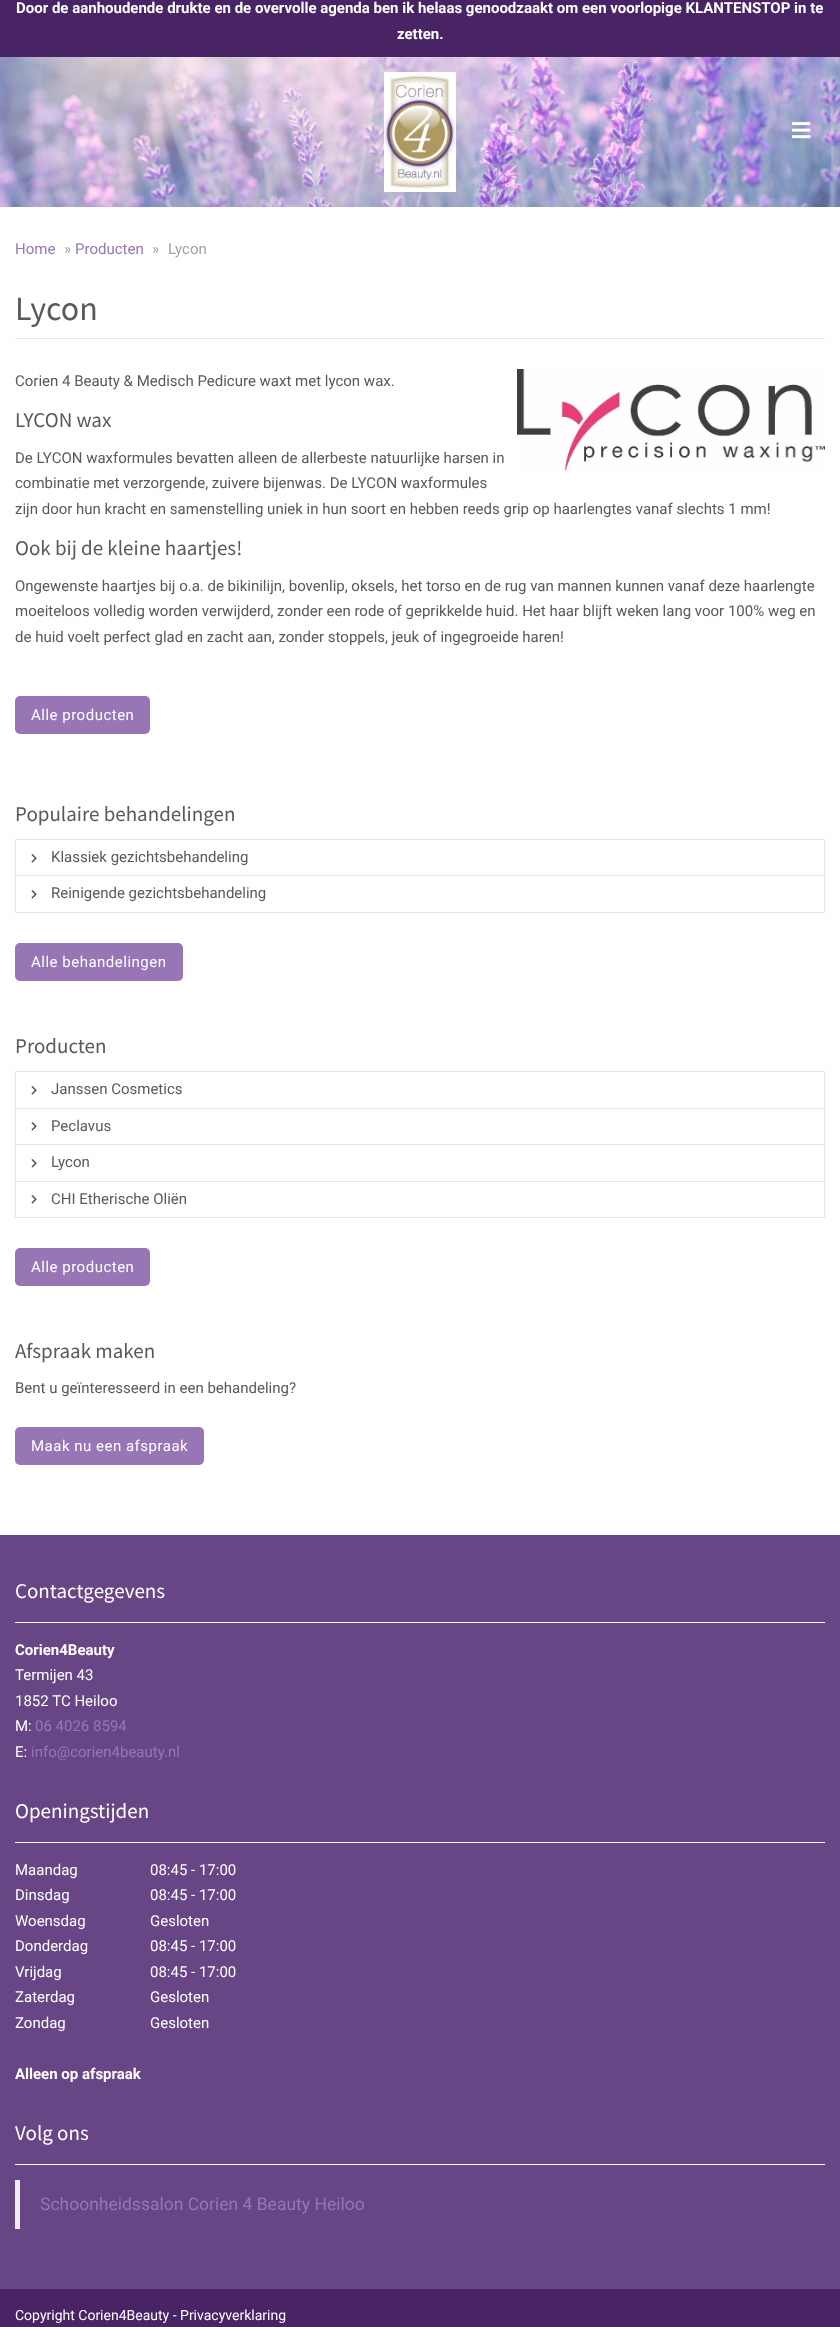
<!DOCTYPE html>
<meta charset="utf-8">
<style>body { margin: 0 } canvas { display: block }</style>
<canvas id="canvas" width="840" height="2327"></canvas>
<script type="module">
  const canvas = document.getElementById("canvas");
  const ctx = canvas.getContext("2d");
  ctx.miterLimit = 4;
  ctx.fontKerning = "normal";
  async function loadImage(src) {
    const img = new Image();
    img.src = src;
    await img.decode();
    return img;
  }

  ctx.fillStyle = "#ffffff";
  ctx.fillRect(0, 0, 840, 2327);
  ctx.fillStyle = "#482465";
  ctx.fillRect(0, 0, 840, 57);
  ctx.font = "bold 15px Roboto";
  ctx.fillStyle = "#ffffff";
  ctx.fillText("Door de aanhoudende drukte en de overvolle agenda ben ik helaas genoodzaakt om een voorlopige KLANTENSTOP in te", 16, 13);
  ctx.fillText("zetten.", 397, 39);
  ctx.drawImage(await loadImage("img1.png"), 0, 57, 840, 150);
  ctx.drawImage(await loadImage("img2.png"), 384, 72, 72, 120);
  ctx.drawImage(await loadImage("img3.png"), 792, 122, 19, 17);
  ctx.font = "15px Roboto";
  ctx.fillStyle = "#9876b5";
  ctx.fillText("Home", 15, 254);
  ctx.fillStyle = "#a2a2a2";
  ctx.fillText("»", 64, 254);
  ctx.fillStyle = "#9876b5";
  ctx.fillText("Producten", 75, 254);
  ctx.fillStyle = "#a2a2a2";
  ctx.fillText("»", 152, 254);
  ctx.fillText("Lycon", 168, 254);
  ctx.fillStyle = "#e6e6e6";
  ctx.fillRect(15, 338, 810, 1);
  ctx.font = "34px Source Sans Pro";
  ctx.fillStyle = "#595959";
  ctx.fillText("Lycon", 15, 320);
  ctx.font = "15px Roboto";
  ctx.fillText("Corien 4 Beauty & Medisch Pedicure waxt met lycon wax.", 15, 386);
  ctx.drawImage(await loadImage("img4.png"), 517, 369, 308, 102);
  ctx.font = "21px Source Sans Pro";
  ctx.fillText("LYCON wax", 15, 427);
  ctx.font = "15px Roboto";
  ctx.fillText("De LYCON waxformules bevatten alleen de allerbeste natuurlijke harsen in", 15, 463);
  ctx.fillText("combinatie met verzorgende, zuivere bijenwas. De LYCON waxformules", 15, 488);
  ctx.fillText("zijn door hun kracht en samenstelling uniek in hun soort en hebben reeds grip op haarlengtes vanaf slechts 1 mm!", 15, 514);
  ctx.font = "21px Source Sans Pro";
  ctx.fillText("Ook bij de kleine haartjes!", 15, 555);
  ctx.font = "15px Roboto";
  ctx.fillText("Ongewenste haartjes bij o.a. de bikinilijn, bovenlip, oksels, het torso en de rug van mannen kunnen vanaf deze haarlengte", 15, 591);
  ctx.fillText("moeiteloos volledig worden verwijderd, zonder een rode of geprikkelde huid. Het haar blijft weken lang voor 100% weg en", 15, 616);
  ctx.fillText("de huid voelt perfect glad en zacht aan, zonder stoppels, jeuk of ingegroeide haren!", 15, 642);
  ctx.fillStyle = "#9876b5";
  ctx.beginPath();
  ctx.roundRect(15, 696, 135, 38, 5);
  ctx.fill();
  ctx.letterSpacing = "0.5px";
  ctx.fillStyle = "#ffffff";
  ctx.fillText("Alle producten", 31, 720);
  ctx.letterSpacing = "0px";
  ctx.font = "21px Source Sans Pro";
  ctx.fillStyle = "#595959";
  ctx.fillText("Populaire behandelingen", 15, 821);
  ctx.strokeStyle = "#e6e6e6";
  ctx.strokeRect(15.5, 839.5, 809, 73);
  ctx.fillStyle = "#e6e6e6";
  ctx.fillRect(16, 875, 808, 1);
  ctx.drawImage(await loadImage("img5.png"), 31, 854, 6, 9);
  ctx.font = "15px Roboto";
  ctx.fillStyle = "#595959";
  ctx.fillText("Klassiek gezichtsbehandeling", 51, 862);
  ctx.drawImage(await loadImage("img5.png"), 31, 890, 6, 9);
  ctx.fillText("Reinigende gezichtsbehandeling", 51, 898);
  ctx.fillStyle = "#9876b5";
  ctx.beginPath();
  ctx.roundRect(15, 943, 168, 38, 5);
  ctx.fill();
  ctx.letterSpacing = "0.5px";
  ctx.fillStyle = "#ffffff";
  ctx.fillText("Alle behandelingen", 31, 967);
  ctx.letterSpacing = "0px";
  ctx.font = "21px Source Sans Pro";
  ctx.fillStyle = "#595959";
  ctx.fillText("Producten", 15, 1053);
  ctx.strokeRect(15.5, 1071.5, 809, 146);
  ctx.fillStyle = "#e6e6e6";
  ctx.fillRect(16, 1108, 808, 1);
  ctx.drawImage(await loadImage("img5.png"), 31, 1086, 6, 9);
  ctx.font = "15px Roboto";
  ctx.fillStyle = "#595959";
  ctx.fillText("Janssen Cosmetics", 51, 1094);
  ctx.fillStyle = "#e6e6e6";
  ctx.fillRect(16, 1144, 808, 1);
  ctx.drawImage(await loadImage("img5.png"), 31, 1122, 6, 9);
  ctx.fillStyle = "#595959";
  ctx.fillText("Peclavus", 51, 1131);
  ctx.fillStyle = "#e6e6e6";
  ctx.fillRect(16, 1181, 808, 1);
  ctx.drawImage(await loadImage("img5.png"), 31, 1159, 6, 9);
  ctx.fillStyle = "#595959";
  ctx.fillText("Lycon", 51, 1167);
  ctx.drawImage(await loadImage("img5.png"), 31, 1195, 6, 9);
  ctx.fillText("CHI Etherische Oliën", 51, 1204);
  ctx.fillStyle = "#9876b5";
  ctx.beginPath();
  ctx.roundRect(15, 1248, 135, 38, 5);
  ctx.fill();
  ctx.letterSpacing = "0.5px";
  ctx.fillStyle = "#ffffff";
  ctx.fillText("Alle producten", 31, 1272);
  ctx.letterSpacing = "0px";
  ctx.font = "21px Source Sans Pro";
  ctx.fillStyle = "#595959";
  ctx.fillText("Afspraak maken", 15, 1358);
  ctx.font = "15px Roboto";
  ctx.fillText("Bent u geïnteresseerd in een behandeling?", 15, 1393);
  ctx.fillStyle = "#9876b5";
  ctx.beginPath();
  ctx.roundRect(15, 1427, 189, 38, 5);
  ctx.fill();
  ctx.letterSpacing = "0.5px";
  ctx.fillStyle = "#ffffff";
  ctx.fillText("Maak nu een afspraak", 31, 1451);
  ctx.fillStyle = "#684585";
  ctx.fillRect(0, 1535, 840, 754);
  ctx.fillStyle = "#ffffff";
  ctx.fillRect(15, 1622, 810, 1);
  ctx.letterSpacing = "0px";
  ctx.font = "21px Source Sans Pro";
  ctx.fillText("Contactgegevens", 15, 1598);
  ctx.font = "bold 15px Roboto";
  ctx.fillText("Corien4Beauty", 15, 1655);
  ctx.font = "15px Roboto";
  ctx.fillText("Termijen 43", 15, 1680);
  ctx.fillText("1852 TC Heiloo", 15, 1706);
  ctx.fillText("M:", 15, 1731);
  ctx.fillStyle = "#9876b5";
  ctx.fillText("06 4026 8594", 35, 1731);
  ctx.fillStyle = "#ffffff";
  ctx.fillText("E:", 15, 1757);
  ctx.fillStyle = "#9876b5";
  ctx.fillText("info@corien4beauty.nl", 31, 1757);
  ctx.fillStyle = "#ffffff";
  ctx.fillRect(15, 1842, 810, 1);
  ctx.font = "21px Source Sans Pro";
  ctx.fillText("Openingstijden", 15, 1818);
  ctx.font = "15px Roboto";
  ctx.fillText("Maandag", 15, 1875);
  ctx.fillText("08:45 - 17:00", 150, 1875);
  ctx.fillText("Dinsdag", 15, 1900);
  ctx.fillText("08:45 - 17:00", 150, 1900);
  ctx.fillText("Woensdag", 15, 1926);
  ctx.fillText("Gesloten", 150, 1926);
  ctx.fillText("Donderdag", 15, 1951);
  ctx.fillText("08:45 - 17:00", 150, 1951);
  ctx.fillText("Vrijdag", 15, 1977);
  ctx.fillText("08:45 - 17:00", 150, 1977);
  ctx.fillText("Zaterdag", 15, 2002);
  ctx.fillText("Gesloten", 150, 2002);
  ctx.fillText("Zondag", 15, 2028);
  ctx.fillText("Gesloten", 150, 2028);
  ctx.font = "bold 15px Roboto";
  ctx.fillText("Alleen op afspraak", 15, 2079);
  ctx.fillRect(15, 2164, 810, 1);
  ctx.font = "21px Source Sans Pro";
  ctx.fillText("Volg ons", 15, 2140);
  ctx.fillStyle = "#eeeeee";
  ctx.fillRect(15, 2180, 5, 49);
  ctx.font = "17.5px Roboto";
  ctx.fillStyle = "#9876b5";
  ctx.fillText("Schoonheidssalon Corien 4 Beauty Heiloo", 40, 2210);
  ctx.fillStyle = "#482465";
  ctx.fillRect(0, 2289, 840, 38);
  ctx.font = "14px Roboto";
  ctx.fillStyle = "#ffffff";
  ctx.fillText("Copyright Corien4Beauty - Privacyverklaring", 15, 2320);
</script>
